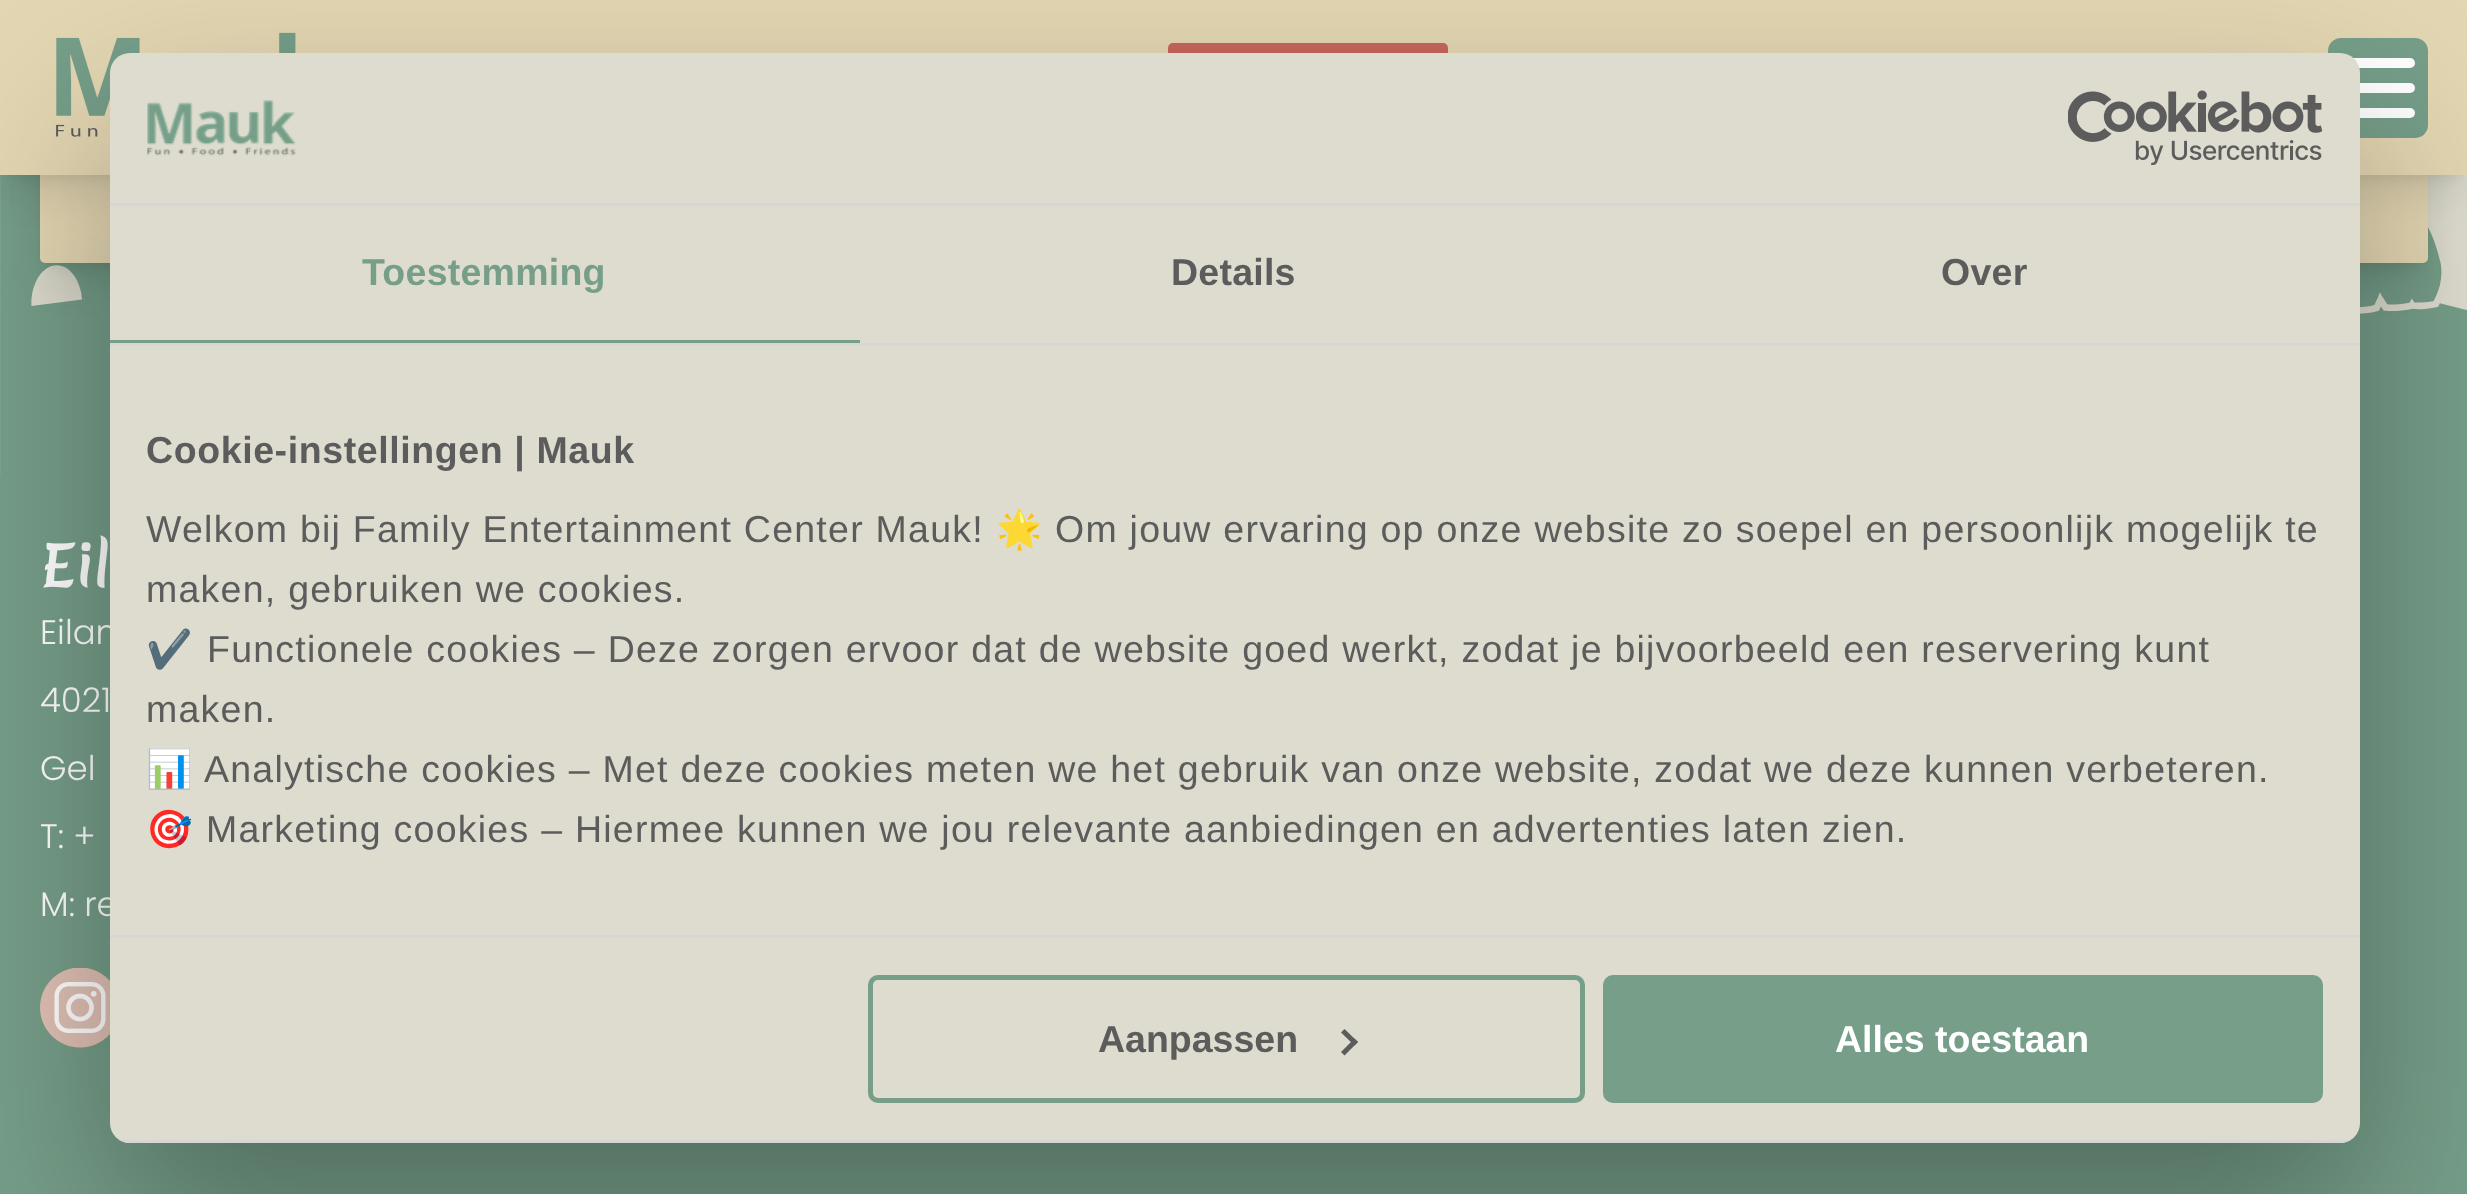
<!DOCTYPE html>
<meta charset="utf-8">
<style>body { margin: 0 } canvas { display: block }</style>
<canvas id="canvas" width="2467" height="1194"></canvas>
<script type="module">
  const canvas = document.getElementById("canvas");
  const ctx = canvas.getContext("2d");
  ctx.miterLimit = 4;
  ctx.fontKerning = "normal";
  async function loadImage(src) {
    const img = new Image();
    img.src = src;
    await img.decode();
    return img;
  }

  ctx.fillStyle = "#dddcce";
  ctx.fillRect(0, 0, 2467, 1194);
  ctx.drawImage(await loadImage("img2.png"), 0, 175, 2467, 300);
  ctx.fillStyle = "rgba(0, 0, 0, 0.1)";
  ctx.filter = "blur(7.5px)";
  ctx.beginPath();
  ctx.rect(50, -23, 1138, 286);
  ctx.fill();
  ctx.filter = "none";
  ctx.filter = "blur(19px)";
  ctx.beginPath();
  ctx.rect(48, -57, 1142, 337);
  ctx.fill();
  ctx.filter = "none";
  ctx.fillStyle = "#e3d6b2";
  ctx.beginPath();
  ctx.roundRect(40, -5, 1158, 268, 5);
  ctx.fill();
  ctx.fillStyle = "rgba(0, 0, 0, 0.1)";
  ctx.filter = "blur(7.5px)";
  ctx.beginPath();
  ctx.rect(1283, -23, 1135, 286);
  ctx.fill();
  ctx.filter = "none";
  ctx.filter = "blur(19px)";
  ctx.beginPath();
  ctx.rect(1280, -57, 1140, 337);
  ctx.fill();
  ctx.filter = "none";
  ctx.fillStyle = "#e3d6b2";
  ctx.beginPath();
  ctx.roundRect(1273, -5, 1155, 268, 5);
  ctx.fill();
  ctx.fillStyle = "rgba(0, 0, 0, 0.1)";
  ctx.filter = "blur(7.5px)";
  ctx.beginPath();
  ctx.rect(10, 20, 2448, 155);
  ctx.fill();
  ctx.filter = "none";
  ctx.filter = "blur(19px)";
  ctx.beginPath();
  ctx.rect(8, 33, 2452, 160);
  ctx.fill();
  ctx.filter = "none";
  ctx.fillStyle = "#e3d6b2";
  ctx.fillRect(0, 0, 2467, 175);
  ctx.drawImage(await loadImage("img1.png"), 56, 32, 240, 105);
  ctx.fillStyle = "#c7665b";
  ctx.beginPath();
  ctx.roundRect(1168, 43, 280, 90, 5);
  ctx.fill();
  ctx.fillStyle = "#769e89";
  ctx.beginPath();
  ctx.roundRect(2328, 38, 100, 100, 13);
  ctx.fill();
  ctx.fillStyle = "#ffffff";
  ctx.beginPath();
  ctx.roundRect(2340, 58, 75, 10, 5);
  ctx.fill();
  ctx.beginPath();
  ctx.roundRect(2340, 83, 75, 10, 5);
  ctx.fill();
  ctx.beginPath();
  ctx.roundRect(2340, 108, 75, 10, 5);
  ctx.fill();
  ctx.fillStyle = "#769e89";
  ctx.fillRect(0, 475, 2467, 719);
  ctx.font = "bold 56px Merienda";
  ctx.fillStyle = "#ffffff";
  ctx.fillText("Eil", 40, 587);
  ctx.font = "300 34px Poppins";
  ctx.fillText("Eilan", 40, 644);
  ctx.fillText("4021", 40, 712);
  ctx.fillText("Gel", 40, 780);
  ctx.fillText("T: +", 40, 848);
  ctx.fillText("M: re", 40, 916);
  ctx.drawImage(await loadImage("img3.png"), 40, 968, 70, 80);
  ctx.fillStyle = "rgba(0, 0, 0, 0.3)";
  ctx.filter = "blur(85px)";
  ctx.beginPath();
  ctx.roundRect(110, 133, 2250, 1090, 20);
  ctx.fill();
  ctx.filter = "none";
  ctx.fillStyle = "#dddcce";
  ctx.beginPath();
  ctx.roundRect(110, 53, 2250, 1090, 20);
  ctx.fill();
  ctx.fillStyle = "#d6d6d6";
  ctx.fillRect(110, 203, 2250, 3);
  ctx.drawImage(await loadImage("img4.png"), 147, 100, 149, 56);
  ctx.drawImage(await loadImage("img5.png"), 2068, 90, 255, 75);
  ctx.fillRect(110, 343, 2250, 3);
  ctx.fillStyle = "#769e89";
  ctx.fillRect(110, 340, 750, 3);
  ctx.letterSpacing = "0.25px";
  ctx.font = "bold 37.5px Liberation Sans";
  ctx.fillText("Toestemming", 362, 285);
  ctx.fillStyle = "#5c5c5c";
  ctx.fillText("Details", 1171, 285);
  ctx.fillText("Over", 1941, 285);
  ctx.fillStyle = "#d6d6d6";
  ctx.fillRect(110, 935, 2250, 3);
  ctx.letterSpacing = "0.6px";
  ctx.fillStyle = "#5c5c5c";
  ctx.fillText("Cookie-instellingen | Mauk", 146, 463);
  ctx.letterSpacing = "1.25px";
  ctx.font = "37.5px Liberation Sans";
  ctx.fillText("Welkom bij Family Entertainment Center Mauk!", 146, 542);
  ctx.font = "37.5px Noto Color Emoji";
  ctx.fillText("🌟", 996, 542);
  ctx.font = "37.5px Liberation Sans";
  ctx.fillText("Om jouw ervaring op onze website zo soepel en persoonlijk mogelijk te", 1055, 542);
  ctx.fillText("maken, gebruiken we cookies.", 146, 602);
  ctx.font = "37.5px Noto Color Emoji";
  ctx.fillText("✔️", 146, 662);
  ctx.font = "37.5px Liberation Sans";
  ctx.fillText("Functionele cookies – Deze zorgen ervoor dat de website goed werkt, zodat je bijvoorbeeld een reservering kunt", 207, 662);
  ctx.fillText("maken.", 146, 722);
  ctx.font = "37.5px Noto Color Emoji";
  ctx.fillText("📊", 146, 782);
  ctx.font = "37.5px Liberation Sans";
  ctx.fillText("Analytische cookies – Met deze cookies meten we het gebruik van onze website, zodat we deze kunnen verbeteren.", 204, 782);
  ctx.font = "37.5px Noto Color Emoji";
  ctx.fillText("🎯", 146, 842);
  ctx.font = "37.5px Liberation Sans";
  ctx.fillText("Marketing cookies – Hiermee kunnen we jou relevante aanbiedingen en advertenties laten zien.", 206, 842);
  ctx.save();
  ctx.beginPath();
  ctx.roundRect(110, 53, 2250, 1090, 20);
  ctx.clip();
  ctx.fillStyle = "#d6d6d6";
  ctx.fillRect(119, 1140, 2232, 3);
  ctx.restore();
  ctx.beginPath();
  ctx.roundRect(870.5, 977.5, 712, 123, 7.5);
  ctx.strokeStyle = "#769e89";
  ctx.lineWidth = 5;
  ctx.stroke();
  ctx.letterSpacing = "0px";
  ctx.font = "bold 37.5px Liberation Sans";
  ctx.fillText("Aanpassen", 1098, 1052);
  ctx.beginPath();
  ctx.moveTo(1344.5, 1029);
  ctx.lineTo(1358, 1042);
  ctx.lineTo(1354.5, 1045.5);
  ctx.lineTo(1341, 1032.5);
  ctx.closePath();
  ctx.fill();
  ctx.beginPath();
  ctx.moveTo(1354.5, 1038.5);
  ctx.lineTo(1358, 1042);
  ctx.lineTo(1344.5, 1055.5);
  ctx.lineTo(1341, 1052);
  ctx.closePath();
  ctx.fill();
  ctx.fillStyle = "#769e89";
  ctx.beginPath();
  ctx.roundRect(1605.5, 977.5, 715, 123, 7.5);
  ctx.fill();
  ctx.stroke();
  ctx.fillStyle = "#ffffff";
  ctx.fillText("Alles toestaan", 1835, 1052);
</script>
